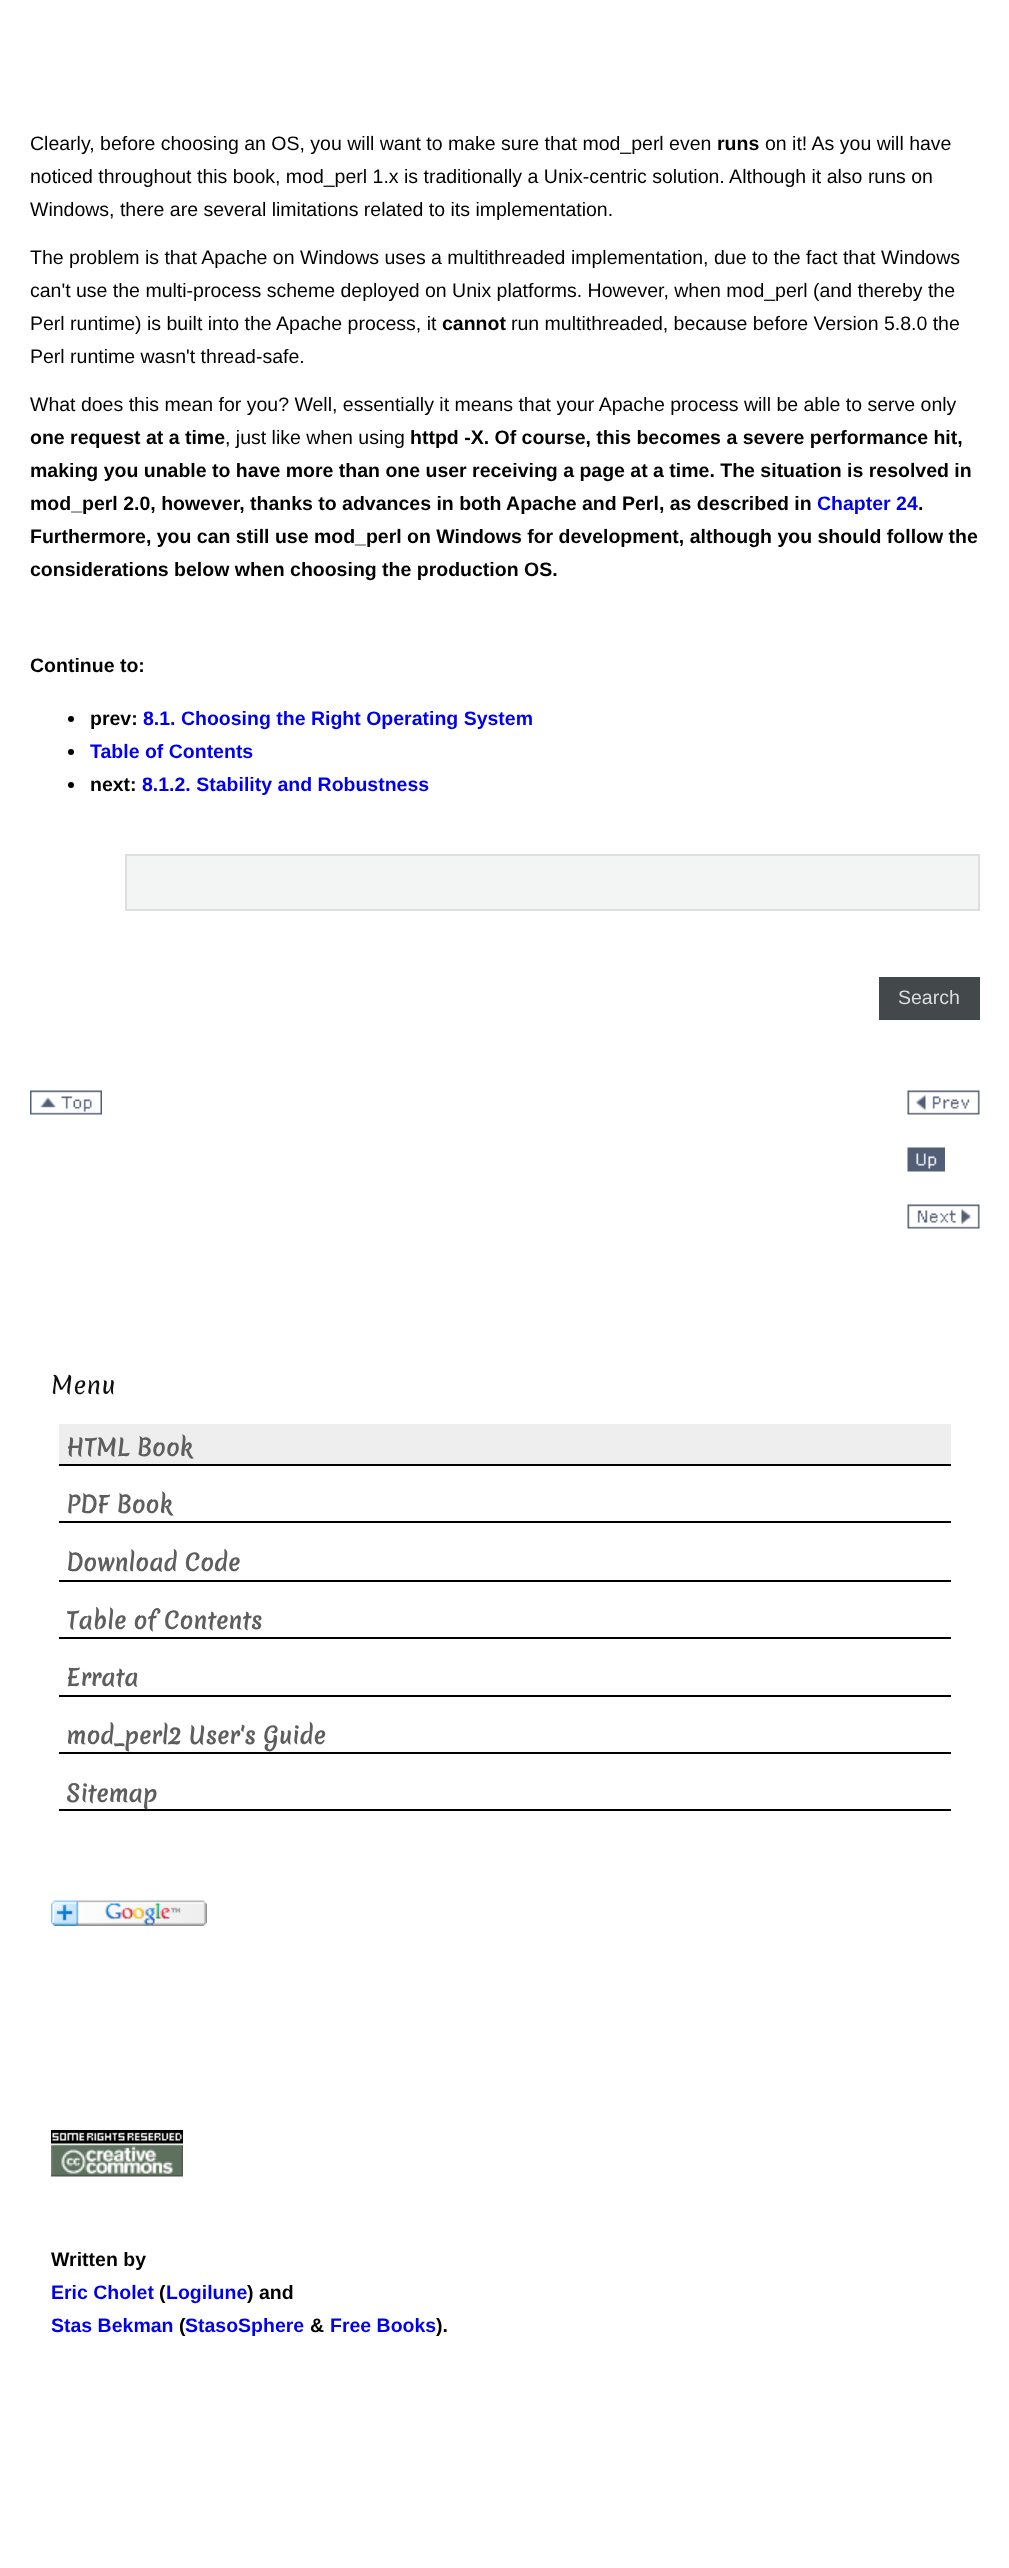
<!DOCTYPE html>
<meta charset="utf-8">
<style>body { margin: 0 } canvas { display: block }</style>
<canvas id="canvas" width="1009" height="2568"></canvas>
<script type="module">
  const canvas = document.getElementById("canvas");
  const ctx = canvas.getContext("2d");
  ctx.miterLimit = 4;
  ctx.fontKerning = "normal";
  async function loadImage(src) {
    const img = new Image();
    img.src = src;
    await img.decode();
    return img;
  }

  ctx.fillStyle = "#ffffff";
  ctx.fillRect(0, 0, 1009, 2568);
  ctx.font = "19.5px Liberation Sans";
  ctx.fillStyle = "#000000";
  ctx.fillText("Clearly, before choosing an OS, you will want to make sure that mod_perl even", 30, 150);
  ctx.font = "bold 19.5px Liberation Sans";
  ctx.fillText("runs", 717, 150);
  ctx.font = "19.5px Liberation Sans";
  ctx.fillText("on it! As you will have", 765, 150);
  ctx.fillText("noticed throughout this book, mod_perl 1.x is traditionally a Unix-centric solution. Although it also runs on", 30, 183);
  ctx.fillText("Windows, there are several limitations related to its implementation.", 30, 216);
  ctx.fillText("The problem is that Apache on Windows uses a multithreaded implementation, due to the fact that Windows", 30, 264);
  ctx.fillText("can't use the multi-process scheme deployed on Unix platforms. However, when mod_perl (and thereby the", 30, 297);
  ctx.fillText("Perl runtime) is built into the Apache process, it", 30, 330);
  ctx.font = "bold 19.5px Liberation Sans";
  ctx.fillText("cannot", 442, 330);
  ctx.font = "19.5px Liberation Sans";
  ctx.fillText("run multithreaded, because before Version 5.8.0 the", 511, 330);
  ctx.fillText("Perl runtime wasn't thread-safe.", 30, 363);
  ctx.fillText("What does this mean for you? Well, essentially it means that your Apache process will be able to serve only", 30, 411);
  ctx.font = "bold 19.5px Liberation Sans";
  ctx.fillText("one request at a time", 30, 444);
  ctx.font = "19.5px Liberation Sans";
  ctx.fillText(", just like when using", 225, 444);
  ctx.font = "bold 19.5px Liberation Sans";
  ctx.fillText("httpd -X. Of course, this becomes a severe performance hit,", 410, 444);
  ctx.fillText("making you unable to have more than one user receiving a page at a time. The situation is resolved in", 30, 477);
  ctx.fillText("mod_perl 2.0, however, thanks to advances in both Apache and Perl, as described in", 30, 510);
  ctx.fillStyle = "#0000ee";
  ctx.fillText("Chapter 24", 817, 510);
  ctx.fillStyle = "#000000";
  ctx.fillText(".", 918, 510);
  ctx.fillText("Furthermore, you can still use mod_perl on Windows for development, although you should follow the", 30, 543);
  ctx.fillText("considerations below when choosing the production OS.", 30, 576);
  ctx.fillText("Continue to:", 30, 672);
  ctx.beginPath();
  ctx.arc(71, 719, 3, 0, Math.PI * 2);
  ctx.fill();
  ctx.fillText("prev:", 90, 725);
  ctx.fillStyle = "#0000ee";
  ctx.fillText("8.1. Choosing the Right Operating System", 143, 725);
  ctx.fillStyle = "#000000";
  ctx.beginPath();
  ctx.arc(71, 752, 3, 0, Math.PI * 2);
  ctx.fill();
  ctx.fillStyle = "#0000ee";
  ctx.fillText("Table of Contents", 90, 758);
  ctx.fillStyle = "#000000";
  ctx.beginPath();
  ctx.arc(71, 785, 3, 0, Math.PI * 2);
  ctx.fill();
  ctx.fillText("next:", 90, 791);
  ctx.fillStyle = "#0000ee";
  ctx.fillText("8.1.2. Stability and Robustness", 142, 791);
  ctx.fillStyle = "#f3f4f4";
  ctx.beginPath();
  ctx.rect(126, 855, 853, 55);
  ctx.fill();
  ctx.strokeStyle = "#dedede";
  ctx.lineWidth = 2;
  ctx.stroke();
  ctx.fillStyle = "#43494a";
  ctx.fillRect(879, 977, 101, 43);
  ctx.font = "19.5px Liberation Sans";
  ctx.fillStyle = "#dcdcdc";
  ctx.fillText("Search", 898, 1004);
  ctx.drawImage(await loadImage("img1.png"), 30, 1090, 72, 25);
  ctx.drawImage(await loadImage("img2.png"), 907, 1090, 73, 25);
  ctx.drawImage(await loadImage("img3.png"), 907, 1147, 38, 25);
  ctx.drawImage(await loadImage("img4.png"), 907, 1204, 73, 25);
  ctx.font = "24px Merienda";
  ctx.fillStyle = "#111111";
  ctx.fillText("Menu", 51, 1394);
  ctx.fillStyle = "#eeeeee";
  ctx.fillRect(59, 1424, 892, 40);
  ctx.fillStyle = "#000000";
  ctx.fillRect(59, 1464, 892, 2);
  ctx.font = "bold 22.5px Merienda";
  ctx.fillStyle = "#5e5e5e";
  ctx.fillText("HTML Book", 66, 1456);
  ctx.fillStyle = "#000000";
  ctx.fillRect(59, 1521, 892, 2);
  ctx.fillStyle = "#5e5e5e";
  ctx.fillText("PDF Book", 66, 1513);
  ctx.fillStyle = "#000000";
  ctx.fillRect(59, 1580, 892, 2);
  ctx.fillStyle = "#5e5e5e";
  ctx.fillText("Download Code", 66, 1571);
  ctx.fillStyle = "#000000";
  ctx.fillRect(59, 1637, 892, 2);
  ctx.fillStyle = "#5e5e5e";
  ctx.fillText("Table of Contents", 66, 1629);
  ctx.fillStyle = "#000000";
  ctx.fillRect(59, 1695, 892, 2);
  ctx.fillStyle = "#5e5e5e";
  ctx.fillText("Errata", 66, 1686);
  ctx.fillStyle = "#000000";
  ctx.fillRect(59, 1752, 892, 2);
  ctx.fillStyle = "#5e5e5e";
  ctx.fillText("mod_perl2 User's Guide", 66, 1744);
  ctx.fillStyle = "#000000";
  ctx.fillRect(59, 1809, 892, 2);
  ctx.fillStyle = "#5e5e5e";
  ctx.fillText("Sitemap", 66, 1802);
  ctx.drawImage(await loadImage("img5.png"), 51, 1900, 156, 26);
  ctx.drawImage(await loadImage("img6.png"), 51, 2130, 132, 47);
  ctx.font = "bold 19.5px Liberation Sans";
  ctx.fillStyle = "#000000";
  ctx.fillText("Written by", 51, 2266);
  ctx.fillStyle = "#0000ee";
  ctx.fillText("Eric Cholet", 51, 2299);
  ctx.fillStyle = "#000000";
  ctx.fillText("(", 159, 2299);
  ctx.fillStyle = "#0000ee";
  ctx.fillText("Logilune", 166, 2299);
  ctx.fillStyle = "#000000";
  ctx.fillText(") and", 247, 2299);
  ctx.fillStyle = "#0000ee";
  ctx.fillText("Stas Bekman", 51, 2332);
  ctx.fillStyle = "#000000";
  ctx.fillText("(", 179, 2332);
  ctx.fillStyle = "#0000ee";
  ctx.fillText("StasoSphere", 185, 2332);
  ctx.fillStyle = "#000000";
  ctx.fillText("&", 310, 2332);
  ctx.fillStyle = "#0000ee";
  ctx.fillText("Free Books", 330, 2332);
  ctx.fillStyle = "#000000";
  ctx.fillText(").", 436, 2332);
</script>
